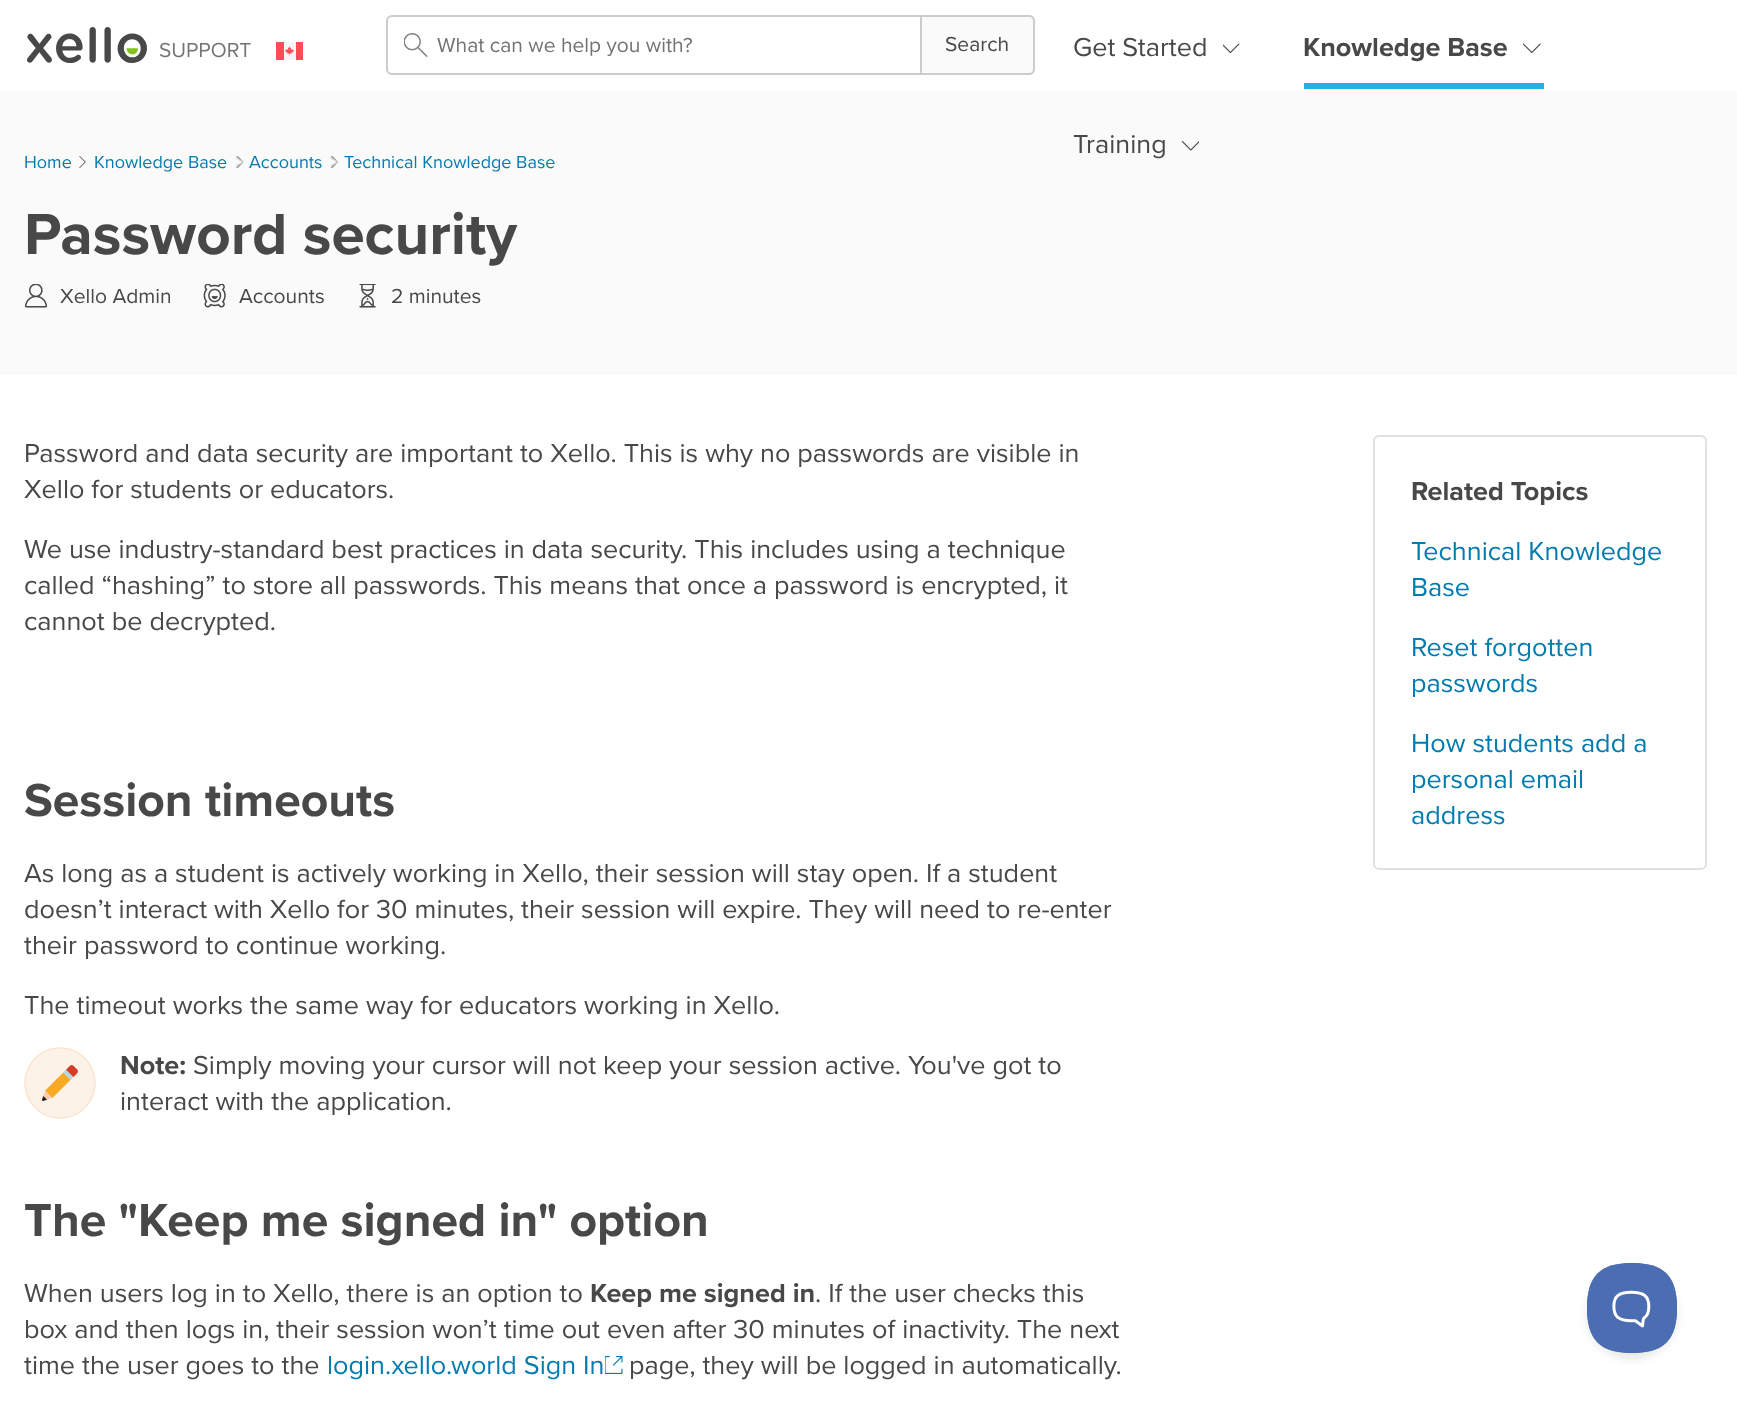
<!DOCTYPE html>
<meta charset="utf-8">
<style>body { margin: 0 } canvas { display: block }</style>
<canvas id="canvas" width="1737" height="1412"></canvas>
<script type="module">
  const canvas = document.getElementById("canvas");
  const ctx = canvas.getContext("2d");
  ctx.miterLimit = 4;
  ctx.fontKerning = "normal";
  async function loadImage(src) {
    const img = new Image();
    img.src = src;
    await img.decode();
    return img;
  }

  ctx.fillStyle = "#ffffff";
  ctx.fillRect(0, 0, 1737, 1412);
  ctx.drawImage(await loadImage("img1.png"), 27, 27, 120, 36);
  ctx.drawImage(await loadImage("img2.png"), 160, 42, 91, 16);
  ctx.drawImage(await loadImage("img3.png"), 276, 42, 27, 18);
  ctx.beginPath();
  ctx.roundRect(387, 16, 647, 58, 5);
  ctx.strokeStyle = "#cccccc";
  ctx.lineWidth = 2;
  ctx.stroke();
  ctx.drawImage(await loadImage("img4.png"), 404, 33, 24, 24);
  ctx.font = "21px Proxima Nova";
  ctx.fillStyle = "#737373";
  ctx.fillText("What can we help you with?", 437, 52);
  ctx.fillStyle = "#fafafa";
  ctx.beginPath();
  ctx.roundRect(921, 16, 113, 58, [0, 5, 5, 0]);
  ctx.fill();
  ctx.stroke();
  ctx.fillStyle = "#484848";
  ctx.fillText("Search", 945, 51);
  ctx.font = "27px Proxima Nova";
  ctx.fillText("Get Started", 1073, 56);
  ctx.drawImage(await loadImage("img5.png"), 1223, 43, 17, 10);
  ctx.fillStyle = "#26afdf";
  ctx.fillRect(1304, 83, 240, 6);
  ctx.font = "bold 27px Proxima Nova";
  ctx.fillStyle = "#484848";
  ctx.fillText("Knowledge Base", 1303, 56);
  ctx.drawImage(await loadImage("img6.png"), 1523, 43, 18, 10);
  ctx.fillStyle = "#fafafa";
  ctx.fillRect(0, 90, 1737, 285);
  ctx.font = "27px Proxima Nova";
  ctx.fillStyle = "#484848";
  ctx.fillText("Training", 1073, 153);
  ctx.drawImage(await loadImage("img7.png"), 1181, 141, 18, 10);
  ctx.font = "18px Proxima Nova";
  ctx.fillStyle = "#027baf";
  ctx.fillText("Home", 24, 168);
  ctx.drawImage(await loadImage("img8.png"), 79, 156, 7, 12);
  ctx.fillText("Knowledge Base", 94, 168);
  ctx.drawImage(await loadImage("img9.png"), 236, 156, 8, 12);
  ctx.fillStyle = "#dbdbdb";
  ctx.fillText(">", 235, 168);
  ctx.fillStyle = "#027baf";
  ctx.fillText("Accounts", 249, 168);
  ctx.drawImage(await loadImage("img10.png"), 330, 156, 8, 12);
  ctx.fillStyle = "#d5d5d5";
  ctx.fillText(">", 330, 168);
  ctx.fillStyle = "#027baf";
  ctx.fillText("Technical Knowledge Base", 344, 168);
  ctx.font = "bold 60px Proxima Nova";
  ctx.fillStyle = "#484848";
  ctx.fillText("Password security", 24, 254);
  ctx.drawImage(await loadImage("img11.png"), 25, 284, 22, 24);
  ctx.font = "21px Proxima Nova";
  ctx.fillText("Xello Admin", 60, 303);
  ctx.drawImage(await loadImage("img12.png"), 203, 284, 23, 24);
  ctx.fillText("Accounts", 239, 303);
  ctx.drawImage(await loadImage("img13.png"), 359, 284, 17, 24);
  ctx.fillText("2 minutes", 391, 303);
  ctx.font = "27px Proxima Nova";
  ctx.fillText("Password and data security are important to Xello. This is why no passwords are visible in", 24, 462);
  ctx.fillText("Xello for students or educators.", 24, 498);
  ctx.fillText("We use industry-standard best practices in data security. This includes using a technique", 24, 558);
  ctx.fillText("called “hashing” to store all passwords. This means that once a password is encrypted, it", 24, 594);
  ctx.fillText("cannot be decrypted.", 24, 630);
  ctx.font = "bold 48px Proxima Nova";
  ctx.fillText("Session timeouts", 24, 816);
  ctx.font = "27px Proxima Nova";
  ctx.fillText("As long as a student is actively working in Xello, their session will stay open. If a student", 24, 882);
  ctx.fillText("doesn’t interact with Xello for 30 minutes, their session will expire. They will need to re-enter", 24, 918);
  ctx.fillText("their password to continue working.", 24, 954);
  ctx.fillText("The timeout works the same way for educators working in Xello.", 24, 1014);
  ctx.drawImage(await loadImage("img14.png"), 24, 1047, 72, 72);
  ctx.font = "bold 27px Proxima Nova";
  ctx.fillText("Note:", 120, 1074);
  ctx.font = "27px Proxima Nova";
  ctx.fillText("Simply moving your cursor will not keep your session active. You've got to", 193, 1074);
  ctx.fillText("interact with the application.", 120, 1110);
  ctx.font = "bold 48px Proxima Nova";
  ctx.fillText("The \"Keep me signed in\" option", 24, 1236);
  ctx.font = "27px Proxima Nova";
  ctx.fillText("When users log in to Xello, there is an option to", 24, 1302);
  ctx.font = "bold 27px Proxima Nova";
  ctx.fillText("Keep me signed in", 590, 1302);
  ctx.font = "27px Proxima Nova";
  ctx.fillText(". If the user checks this", 815, 1302);
  ctx.fillText("box and then logs in, their session won’t time out even after 30 minutes of inactivity. The next", 24, 1338);
  ctx.fillText("time the user goes to the", 24, 1374);
  ctx.fillStyle = "#027baf";
  ctx.fillText("login.xello.world Sign In", 327, 1374);
  ctx.drawImage(await loadImage("img15.png"), 605, 1356, 18, 18);
  ctx.fillStyle = "#484848";
  ctx.fillText("page, they will be logged in automatically.", 629, 1374);
  ctx.beginPath();
  ctx.roundRect(1374, 436, 332, 433, 5);
  ctx.strokeStyle = "#e1e1e1";
  ctx.stroke();
  ctx.font = "bold 27px Proxima Nova";
  ctx.fillText("Related Topics", 1411, 500);
  ctx.font = "27px Proxima Nova";
  ctx.fillStyle = "#027baf";
  ctx.fillText("Technical Knowledge", 1411, 560);
  ctx.fillText("Base", 1411, 596);
  ctx.fillText("Reset forgotten", 1411, 656);
  ctx.fillText("passwords", 1411, 692);
  ctx.fillText("How students add a", 1411, 752);
  ctx.fillText("personal email", 1411, 788);
  ctx.fillText("address", 1411, 824);
  ctx.fillStyle = "rgba(0, 0, 0, 0.1)";
  ctx.filter = "blur(5px)";
  ctx.beginPath();
  ctx.roundRect(1587, 1269, 90, 90, 45);
  ctx.fill();
  ctx.filter = "none";
  ctx.drawImage(await loadImage("img16.png"), 1587, 1263, 90, 90);
</script>
